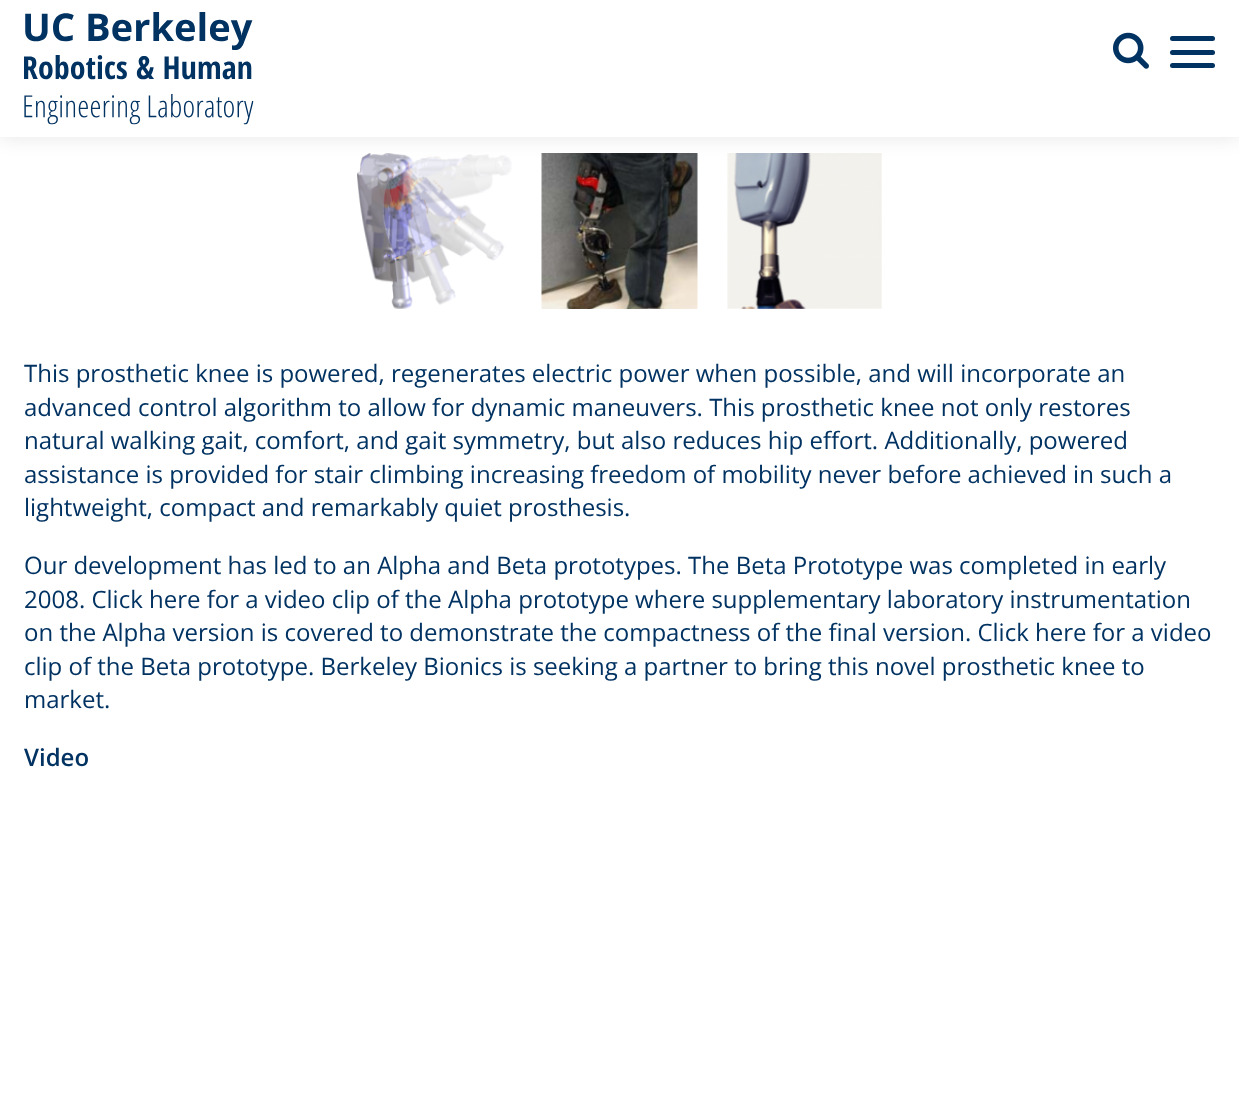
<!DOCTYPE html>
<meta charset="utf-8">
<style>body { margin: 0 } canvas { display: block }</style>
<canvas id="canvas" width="1239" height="1094"></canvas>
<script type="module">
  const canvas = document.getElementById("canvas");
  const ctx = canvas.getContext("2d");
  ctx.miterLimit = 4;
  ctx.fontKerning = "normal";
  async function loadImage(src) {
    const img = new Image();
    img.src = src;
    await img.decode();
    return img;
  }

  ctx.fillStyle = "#ffffff";
  ctx.fillRect(0, 0, 1239, 1094);
  ctx.drawImage(await loadImage("img3.png"), 357, 153, 155, 156);
  ctx.drawImage(await loadImage("img4.png"), 541, 153, 157, 156);
  ctx.drawImage(await loadImage("img5.png"), 727, 153, 155, 156);
  ctx.fillStyle = "rgba(0, 0, 0, 0.1)";
  ctx.filter = "blur(10px)";
  ctx.beginPath();
  ctx.rect(0, 0, 1239, 137);
  ctx.fill();
  ctx.filter = "none";
  ctx.fillStyle = "#ffffff";
  ctx.fillRect(0, 0, 1239, 137);
  ctx.drawImage(await loadImage("img1.png"), 24, 12, 230, 113);
  ctx.drawImage(await loadImage("img2.png"), 1113, 32, 36, 37);
  ctx.fillStyle = "#003262";
  ctx.beginPath();
  ctx.roundRect(1170, 36, 45, 5, 2.5);
  ctx.fill();
  ctx.beginPath();
  ctx.roundRect(1170, 50, 45, 5, 2.5);
  ctx.fill();
  ctx.beginPath();
  ctx.roundRect(1170, 63, 45, 5, 2.5);
  ctx.fill();
  ctx.font = "24px Open Sans";
  ctx.fillText("This prosthetic knee is powered, regenerates electric power when possible, and will incorporate an", 24, 382);
  ctx.fillText("advanced control algorithm to allow for dynamic maneuvers. This prosthetic knee not only restores", 24, 416);
  ctx.fillText("natural walking gait, comfort, and gait symmetry, but also reduces hip effort. Additionally, powered", 24, 449);
  ctx.fillText("assistance is provided for stair climbing increasing freedom of mobility never before achieved in such a", 24, 483);
  ctx.fillText("lightweight, compact and remarkably quiet prosthesis.", 24, 516);
  ctx.fillText("Our development has led to an Alpha and Beta prototypes. The Beta Prototype was completed in early", 24, 574);
  ctx.fillText("2008. Click here for a video clip of the Alpha prototype where supplementary laboratory instrumentation", 24, 608);
  ctx.fillText("on the Alpha version is covered to demonstrate the compactness of the final version. Click here for a video", 24, 641);
  ctx.fillText("clip of the Beta prototype. Berkeley Bionics is seeking a partner to bring this novel prosthetic knee to", 24, 675);
  ctx.fillText("market.", 24, 708);
  ctx.font = "600 24px Open Sans";
  ctx.fillText("Video", 24, 766);
</script>
